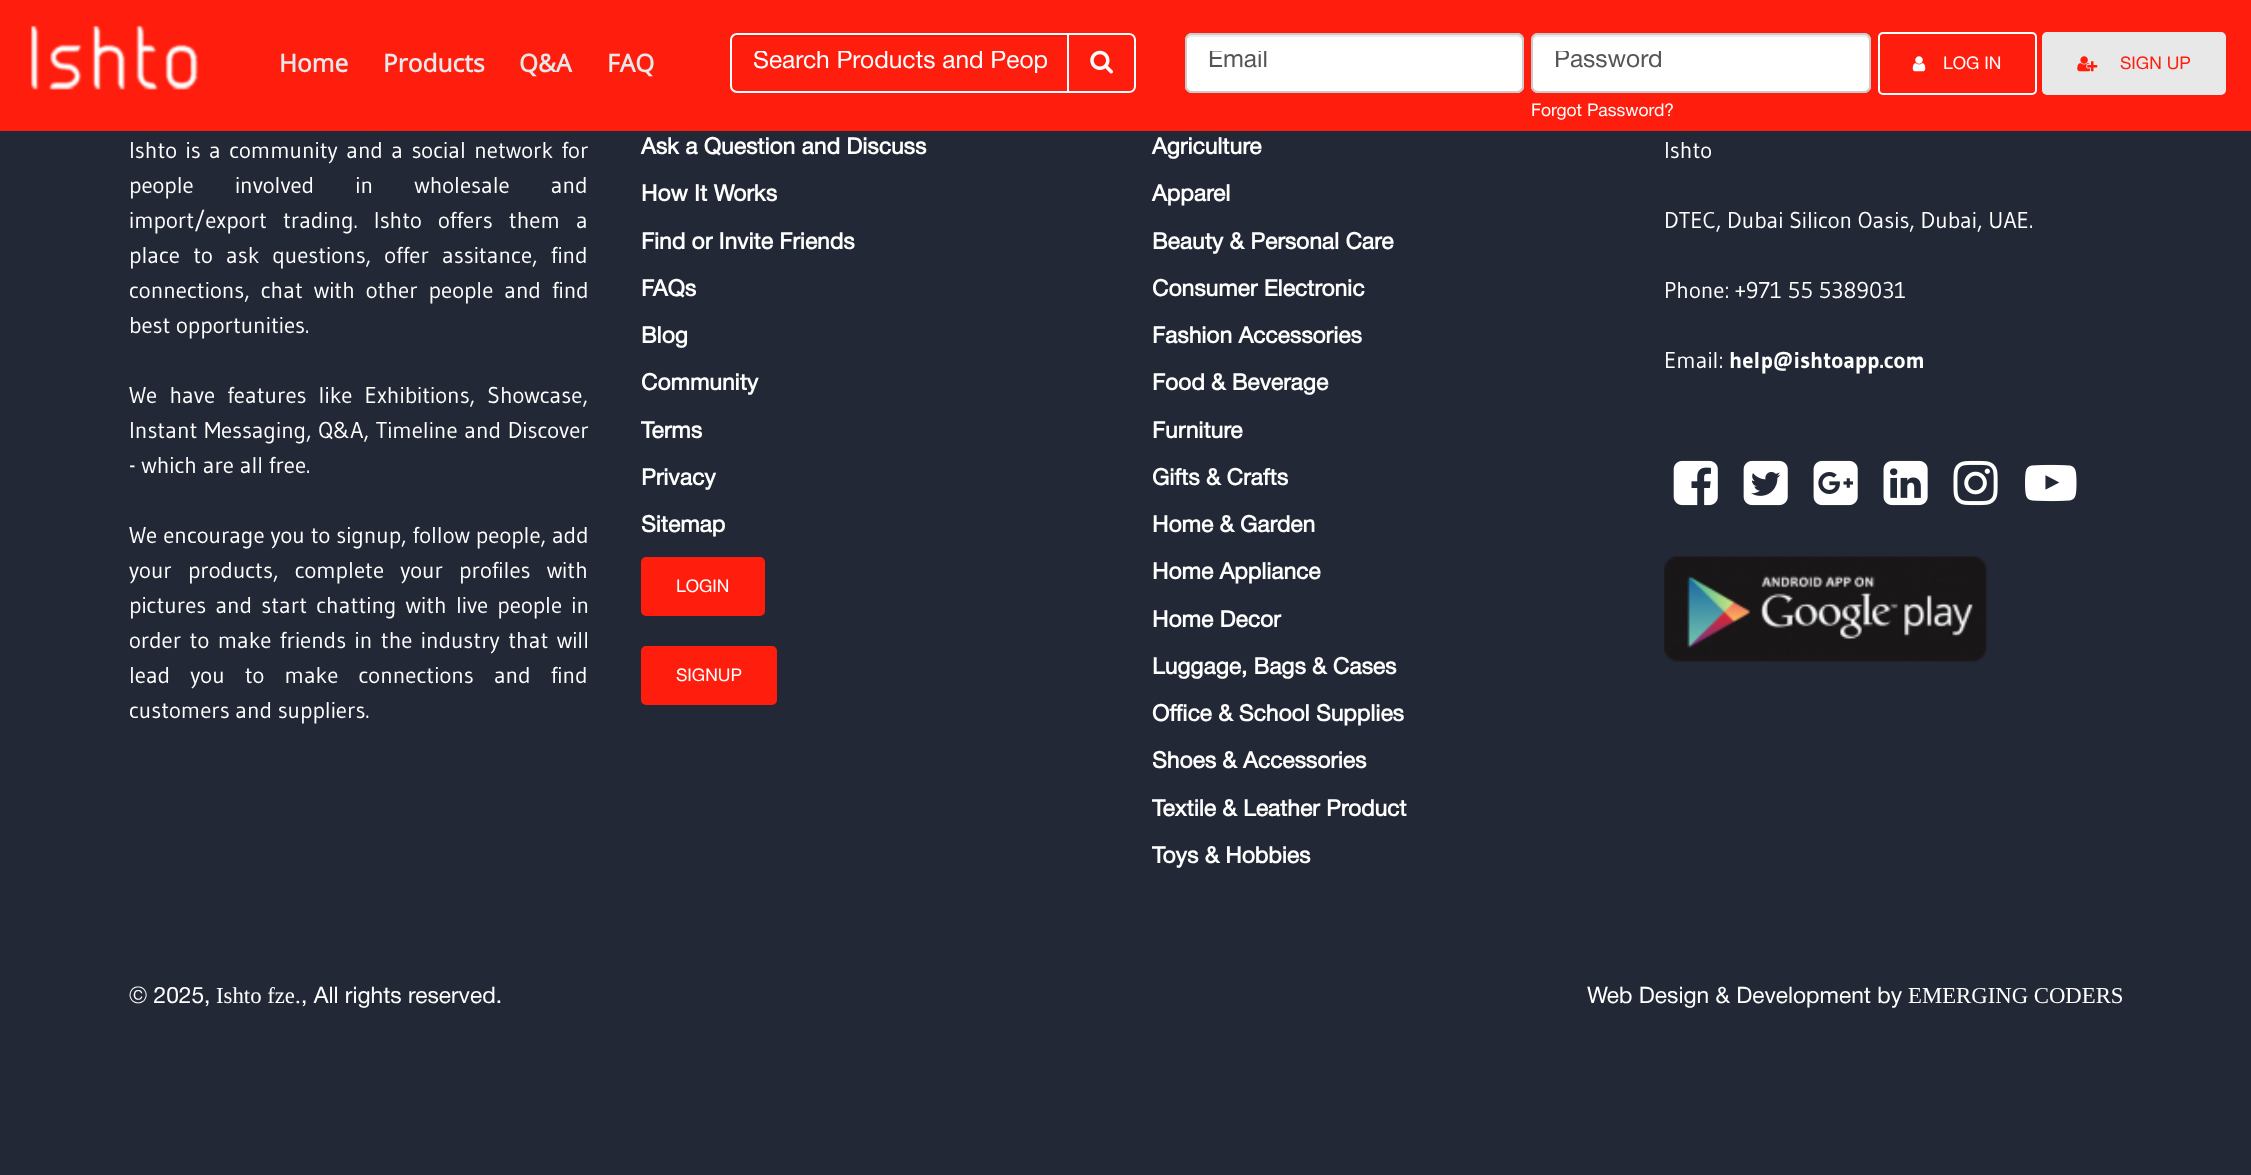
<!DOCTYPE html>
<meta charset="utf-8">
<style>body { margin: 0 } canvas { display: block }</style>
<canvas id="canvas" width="2251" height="1175"></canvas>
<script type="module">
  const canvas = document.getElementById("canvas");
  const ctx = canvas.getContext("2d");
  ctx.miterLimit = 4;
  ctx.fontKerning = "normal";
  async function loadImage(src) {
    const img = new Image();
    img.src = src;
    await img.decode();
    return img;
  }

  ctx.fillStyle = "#222835";
  ctx.fillRect(0, 0, 2251, 1175);
  ctx.fillStyle = "#ff1d0d";
  ctx.fillRect(0, 0, 2251, 131);
  ctx.font = "bold 24.5px Open Sans";
  ctx.fillStyle = "#e8e8e8";
  ctx.fillText("Home", 279, 72);
  ctx.fillText("Products", 383, 72);
  ctx.fillText("Q&A", 519, 72);
  ctx.fillText("FAQ", 607, 72);
  ctx.drawImage(await loadImage("img1.png"), 30, 25, 169, 65);
  ctx.fillStyle = "#ec1b0c";
  ctx.beginPath();
  ctx.moveTo(737, 37);
  ctx.lineTo(1068, 37);
  ctx.lineTo(1068, 35);
  ctx.lineTo(737, 35);
  ctx.bezierCurveTo(734, 35, 732, 37, 732, 40);
  ctx.lineTo(732, 42);
  ctx.bezierCurveTo(732, 39, 734, 37, 737, 37);
  ctx.closePath();
  ctx.fill();
  ctx.beginPath();
  ctx.roundRect(731, 34, 337, 58, [6, 0, 0, 6]);
  ctx.strokeStyle = "#ffffff";
  ctx.lineWidth = 2;
  ctx.stroke();
  ctx.save();
  ctx.beginPath();
  ctx.rect(753, 51, 294, 24);
  ctx.clip();
  ctx.font = "24.5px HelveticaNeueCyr";
  ctx.fillStyle = "#ffffff";
  ctx.fillText("Search Products and Peop", 753, 68);
  ctx.restore();
  ctx.fillStyle = "#ffffff";
  ctx.beginPath();
  ctx.moveTo(1069, 33);
  ctx.lineTo(1129, 33);
  ctx.bezierCurveTo(1133, 33, 1136, 36, 1136, 40);
  ctx.lineTo(1136, 86);
  ctx.bezierCurveTo(1136, 90, 1133, 93, 1129, 93);
  ctx.lineTo(1069, 93);
  ctx.closePath();
  ctx.moveTo(1069, 35);
  ctx.lineTo(1129, 35);
  ctx.bezierCurveTo(1132, 35, 1134, 37, 1134, 40);
  ctx.lineTo(1134, 86);
  ctx.bezierCurveTo(1134, 89, 1132, 91, 1129, 91);
  ctx.lineTo(1069, 91);
  ctx.closePath();
  ctx.fill("evenodd");
  ctx.drawImage(await loadImage("img2.png"), 1090, 50, 23, 24);
  ctx.beginPath();
  ctx.roundRect(1185, 33, 339, 60, 7);
  ctx.fill();
  ctx.fillStyle = "#ececec";
  ctx.beginPath();
  ctx.moveTo(1192, 37);
  ctx.lineTo(1517, 37);
  ctx.bezierCurveTo(1520, 37, 1522, 39, 1522, 42);
  ctx.lineTo(1522, 89);
  ctx.bezierCurveTo(1523, 88, 1523, 87, 1523, 86);
  ctx.lineTo(1523, 40);
  ctx.bezierCurveTo(1523, 37, 1521, 35, 1518, 35);
  ctx.lineTo(1192, 35);
  ctx.bezierCurveTo(1190, 35, 1187, 37, 1187, 39);
  ctx.bezierCurveTo(1188, 38, 1190, 37, 1192, 37);
  ctx.closePath();
  ctx.fill();
  ctx.beginPath();
  ctx.roundRect(1186, 34, 337, 58, 6);
  ctx.strokeStyle = "#cccccc";
  ctx.stroke();
  ctx.save();
  ctx.beginPath();
  ctx.rect(1208, 51, 294, 24);
  ctx.clip();
  ctx.font = "24.5px HelveticaNeueCyr";
  ctx.fillStyle = "#555555";
  ctx.fillText("Email", 1208, 67);
  ctx.restore();
  ctx.fillStyle = "#ffffff";
  ctx.beginPath();
  ctx.roundRect(1531, 33, 340, 60, 7);
  ctx.fill();
  ctx.fillStyle = "#ececec";
  ctx.beginPath();
  ctx.moveTo(1538, 37);
  ctx.lineTo(1864, 37);
  ctx.bezierCurveTo(1867, 37, 1869, 39, 1869, 42);
  ctx.lineTo(1869, 40);
  ctx.bezierCurveTo(1869, 37, 1867, 35, 1864, 35);
  ctx.lineTo(1538, 35);
  ctx.bezierCurveTo(1535, 35, 1533, 37, 1533, 40);
  ctx.lineTo(1533, 42);
  ctx.bezierCurveTo(1533, 39, 1535, 37, 1538, 37);
  ctx.closePath();
  ctx.fill();
  ctx.beginPath();
  ctx.roundRect(1532, 34, 338, 58, 6);
  ctx.stroke();
  ctx.save();
  ctx.beginPath();
  ctx.rect(1554, 51, 294, 24);
  ctx.clip();
  ctx.font = "24.5px HelveticaNeueCyr";
  ctx.fillStyle = "#555555";
  ctx.fillText("Password", 1554, 67);
  ctx.restore();
  ctx.font = "17.5px HelveticaNeueCyr";
  ctx.fillStyle = "#ffffff";
  ctx.fillText("Forgot Password?", 1531, 116);
  ctx.beginPath();
  ctx.roundRect(1879, 33, 157, 61, 4);
  ctx.strokeStyle = "#ffffff";
  ctx.stroke();
  ctx.drawImage(await loadImage("img3.png"), 1912, 56, 14, 16);
  ctx.fillText("LOG IN", 1943, 69);
  ctx.fillStyle = "#e8e8e8";
  ctx.beginPath();
  ctx.roundRect(2043, 33, 182, 61, 4);
  ctx.fill();
  ctx.strokeStyle = "#e8e8e8";
  ctx.stroke();
  ctx.drawImage(await loadImage("img4.png"), 2077, 56, 21, 16);
  ctx.fillStyle = "#ff1d0d";
  ctx.fillText("SIGN UP", 2120, 69);
  ctx.wordSpacing = "2.75px";
  ctx.font = "22.75px Gudea";
  ctx.fillStyle = "#ffffff";
  ctx.fillText("Ishto is a community and a social network for", 129, 158);
  ctx.wordSpacing = "35.5px";
  ctx.fillText("people involved in wholesale and", 129, 193);
  ctx.wordSpacing = "10.5px";
  ctx.fillText("import/export trading. Ishto offers them a", 129, 228);
  ctx.wordSpacing = "7.5px";
  ctx.fillText("place to ask questions, offer assitance, find", 129, 263);
  ctx.wordSpacing = "5.25px";
  ctx.fillText("connections, chat with other people and find", 129, 298);
  ctx.wordSpacing = "0px";
  ctx.fillText("best opportunities.", 129, 333);
  ctx.wordSpacing = "6.5px";
  ctx.fillText("We have features like Exhibitions, Showcase,", 129, 403);
  ctx.wordSpacing = "1px";
  ctx.fillText("Instant Messaging, Q&A, Timeline and Discover", 129, 438);
  ctx.wordSpacing = "0px";
  ctx.fillText("- which are all free.", 129, 473);
  ctx.wordSpacing = "0.25px";
  ctx.fillText("We encourage you to signup, follow people, add", 129, 543);
  ctx.wordSpacing = "10.5px";
  ctx.fillText("your products, complete your profiles with", 129, 578);
  ctx.wordSpacing = "3.5px";
  ctx.fillText("pictures and start chatting with live people in", 129, 613);
  ctx.wordSpacing = "2.75px";
  ctx.fillText("order to make friends in the industry that will", 129, 648);
  ctx.wordSpacing = "14.5px";
  ctx.fillText("lead you to make connections and find", 129, 683);
  ctx.wordSpacing = "0px";
  ctx.fillText("customers and suppliers.", 129, 718);
  ctx.font = "bold 22.75px HelveticaNeueCyr";
  ctx.fillText("Ask a Question and Discuss", 641, 154);
  ctx.fillText("How It Works", 641, 201);
  ctx.fillText("Find or Invite Friends", 641, 249);
  ctx.fillText("FAQs", 641, 296);
  ctx.fillText("Blog", 641, 343);
  ctx.fillText("Community", 641, 390);
  ctx.fillText("Terms", 641, 438);
  ctx.fillText("Privacy", 641, 485);
  ctx.fillText("Sitemap", 641, 532);
  ctx.fillStyle = "#ff1d0d";
  ctx.beginPath();
  ctx.roundRect(642, 558, 122, 57, 4);
  ctx.fill();
  ctx.strokeStyle = "#ff1d0d";
  ctx.stroke();
  ctx.font = "17.5px HelveticaNeueCyr";
  ctx.fillStyle = "#ffffff";
  ctx.fillText("LOGIN", 676, 592);
  ctx.fillStyle = "#ff1d0d";
  ctx.beginPath();
  ctx.roundRect(642, 647, 134, 57, 4);
  ctx.fill();
  ctx.stroke();
  ctx.fillStyle = "#ffffff";
  ctx.fillText("SIGNUP", 676, 681);
  ctx.font = "bold 22.75px HelveticaNeueCyr";
  ctx.fillText("Agriculture", 1152, 154);
  ctx.fillText("Apparel", 1152, 201);
  ctx.fillText("Beauty & Personal Care", 1152, 249);
  ctx.fillText("Consumer Electronic", 1152, 296);
  ctx.fillText("Fashion Accessories", 1152, 343);
  ctx.fillText("Food & Beverage", 1152, 390);
  ctx.fillText("Furniture", 1152, 438);
  ctx.fillText("Gifts & Crafts", 1152, 485);
  ctx.fillText("Home & Garden", 1152, 532);
  ctx.fillText("Home Appliance", 1152, 579);
  ctx.fillText("Home Decor", 1152, 627);
  ctx.fillText("Luggage, Bags & Cases", 1152, 674);
  ctx.fillText("Office & School Supplies", 1152, 721);
  ctx.fillText("Shoes & Accessories", 1152, 768);
  ctx.fillText("Textile & Leather Product", 1152, 816);
  ctx.fillText("Toys & Hobbies", 1152, 863);
  ctx.font = "22.75px Gudea";
  ctx.fillText("Ishto", 1664, 158);
  ctx.fillText("DTEC, Dubai Silicon Oasis, Dubai, UAE.", 1664, 228);
  ctx.fillText("Phone: +971 55 5389031", 1664, 298);
  ctx.fillText("Email:", 1664, 368);
  ctx.font = "bold 22.75px Gudea";
  ctx.fillText("help@ishtoapp.com", 1729, 368);
  ctx.drawImage(await loadImage("img5.png"), 1673, 460, 45, 46);
  ctx.drawImage(await loadImage("img6.png"), 1743, 460, 45, 46);
  ctx.drawImage(await loadImage("img7.png"), 1813, 460, 45, 46);
  ctx.drawImage(await loadImage("img8.png"), 1883, 460, 45, 46);
  ctx.drawImage(await loadImage("img9.png"), 1953, 460, 45, 46);
  ctx.drawImage(await loadImage("img10.png"), 2025, 464, 52, 38);
  ctx.drawImage(await loadImage("img11.png"), 1664, 556, 323, 106);
  ctx.font = "22.75px HelveticaNeueCyr";
  ctx.fillText("© 2025,", 129, 1003);
  ctx.font = "22.75px Liberation Serif";
  ctx.fillText("Ishto fze.", 216, 1003);
  ctx.font = "22.75px HelveticaNeueCyr";
  ctx.fillText(", All rights reserved.", 301, 1003);
  ctx.fillText("Web Design & Development by", 1587, 1003);
  ctx.font = "22.75px Liberation Serif";
  ctx.fillText("EMERGING CODERS", 1908, 1003);
</script>
